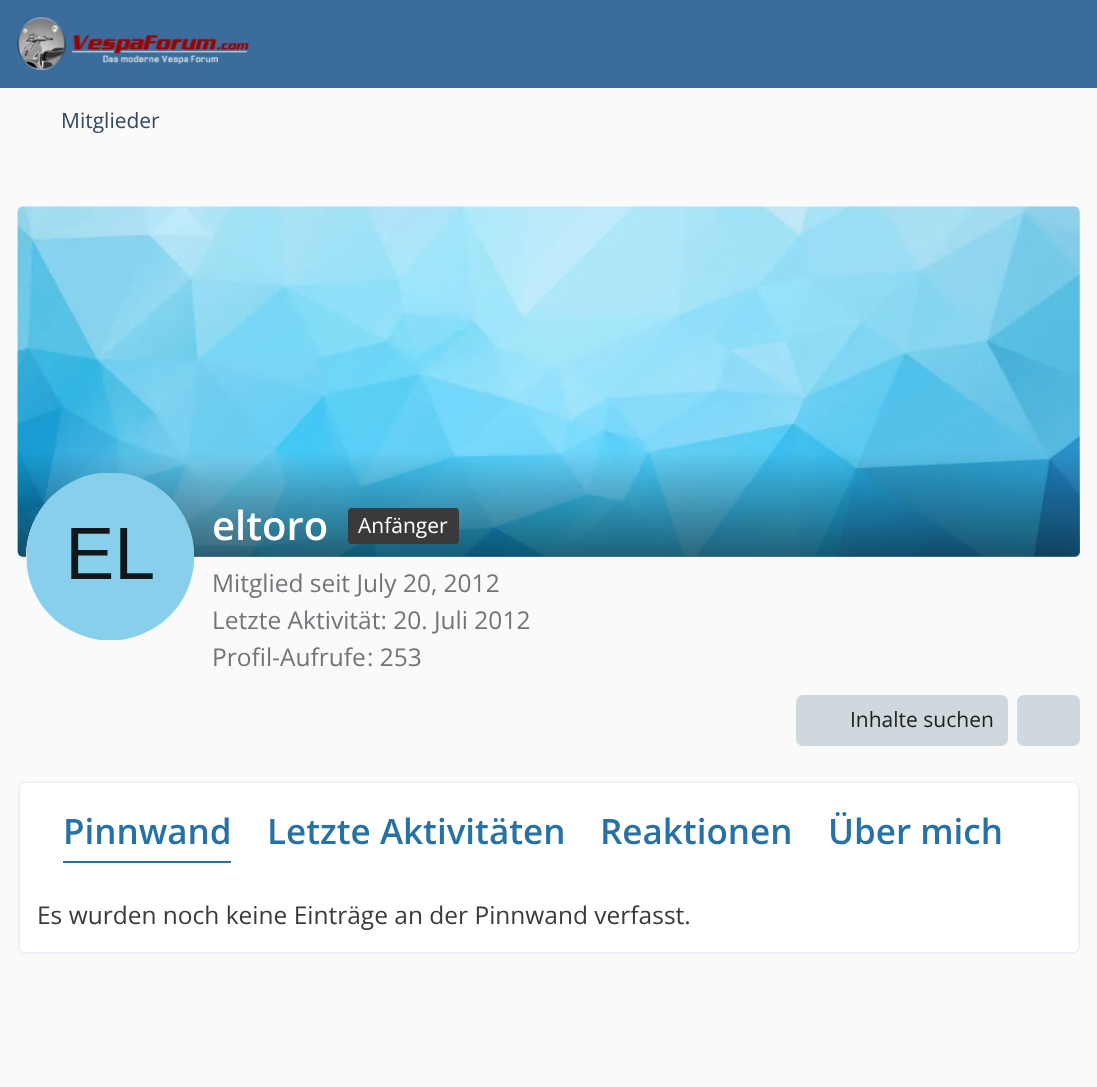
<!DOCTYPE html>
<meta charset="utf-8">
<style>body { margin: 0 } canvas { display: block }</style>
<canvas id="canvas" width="1097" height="1087"></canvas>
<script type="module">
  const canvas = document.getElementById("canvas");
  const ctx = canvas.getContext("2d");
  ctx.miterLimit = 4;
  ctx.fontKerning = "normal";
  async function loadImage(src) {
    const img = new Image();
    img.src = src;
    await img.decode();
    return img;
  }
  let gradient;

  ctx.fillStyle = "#fafafa";
  ctx.fillRect(0, 0, 1097, 1087);
  ctx.fillStyle = "#3a6d9c";
  ctx.fillRect(0, 0, 1097, 88);
  ctx.drawImage(await loadImage("img1.png"), 17, 17, 232, 53);
  ctx.font = "21px Open Sans";
  ctx.fillStyle = "#34495e";
  ctx.fillText("Mitglieder", 61, 128);
  ctx.drawImage(await loadImage("img2.png"), 17, 206, 1063, 351);
  gradient = ctx.createLinearGradient(549, 206, 549, 557);
  gradient.addColorStop(0.7, "rgba(0, 0, 0, 0)");
  gradient.addColorStop(1, "rgba(0, 0, 0, 0.5)");
  ctx.fillStyle = gradient;
  ctx.beginPath();
  ctx.roundRect(18, 207, 1062, 350, [0, 0, 5, 5]);
  ctx.fill();
  ctx.fillStyle = "#ffffff";
  ctx.beginPath();
  ctx.arc(110, 557, 84, 0, Math.PI * 2);
  ctx.fill();
  ctx.drawImage(await loadImage("img3.png"), 26, 473, 168, 168);
  ctx.font = "600 40px Open Sans";
  ctx.fillText("eltoro", 212, 540);
  ctx.fillStyle = "#3a3a3d";
  ctx.beginPath();
  ctx.roundRect(348, 508, 111, 36, 4);
  ctx.fill();
  ctx.font = "21px Open Sans";
  ctx.fillStyle = "#ffffff";
  ctx.fillText("Anfänger", 358, 533);
  ctx.font = "24.5px Open Sans";
  ctx.fillStyle = "#71757a";
  ctx.fillText("Mitglied seit July 20, 2012", 212, 592);
  ctx.fillText("Letzte Aktivität: 20. Juli 2012", 212, 629);
  ctx.fillText("Profil-Aufrufe", 212, 666);
  ctx.fillText(": 253", 367, 666);
  ctx.fillStyle = "#cfd8dc";
  ctx.beginPath();
  ctx.roundRect(796, 695, 212, 51, 7);
  ctx.fill();
  ctx.font = "21px Open Sans";
  ctx.fillStyle = "#212121";
  ctx.fillText("Inhalte suchen", 850, 727);
  ctx.fillStyle = "#cfd8dc";
  ctx.beginPath();
  ctx.roundRect(1017, 695, 63, 51, 7);
  ctx.fill();
  ctx.fillStyle = "#ffffff";
  ctx.beginPath();
  ctx.roundRect(19, 782, 1060, 171, 6);
  ctx.fill();
  ctx.strokeStyle = "#ecf1f7";
  ctx.lineWidth = 2;
  ctx.stroke();
  ctx.font = "600 35px Open Sans";
  ctx.fillStyle = "#2671a6";
  ctx.fillText("Pinnwand", 63, 844);
  ctx.fillRect(63, 861, 168, 2);
  ctx.fillText("Letzte Aktivitäten", 267, 844);
  ctx.fillText("Reaktionen", 600, 844);
  ctx.fillText("Über mich", 828, 844);
  ctx.font = "24.5px Open Sans";
  ctx.fillStyle = "#3a3a3d";
  ctx.fillText("Es wurden noch keine Einträge an der Pinnwand verfasst.", 37, 924);
</script>
